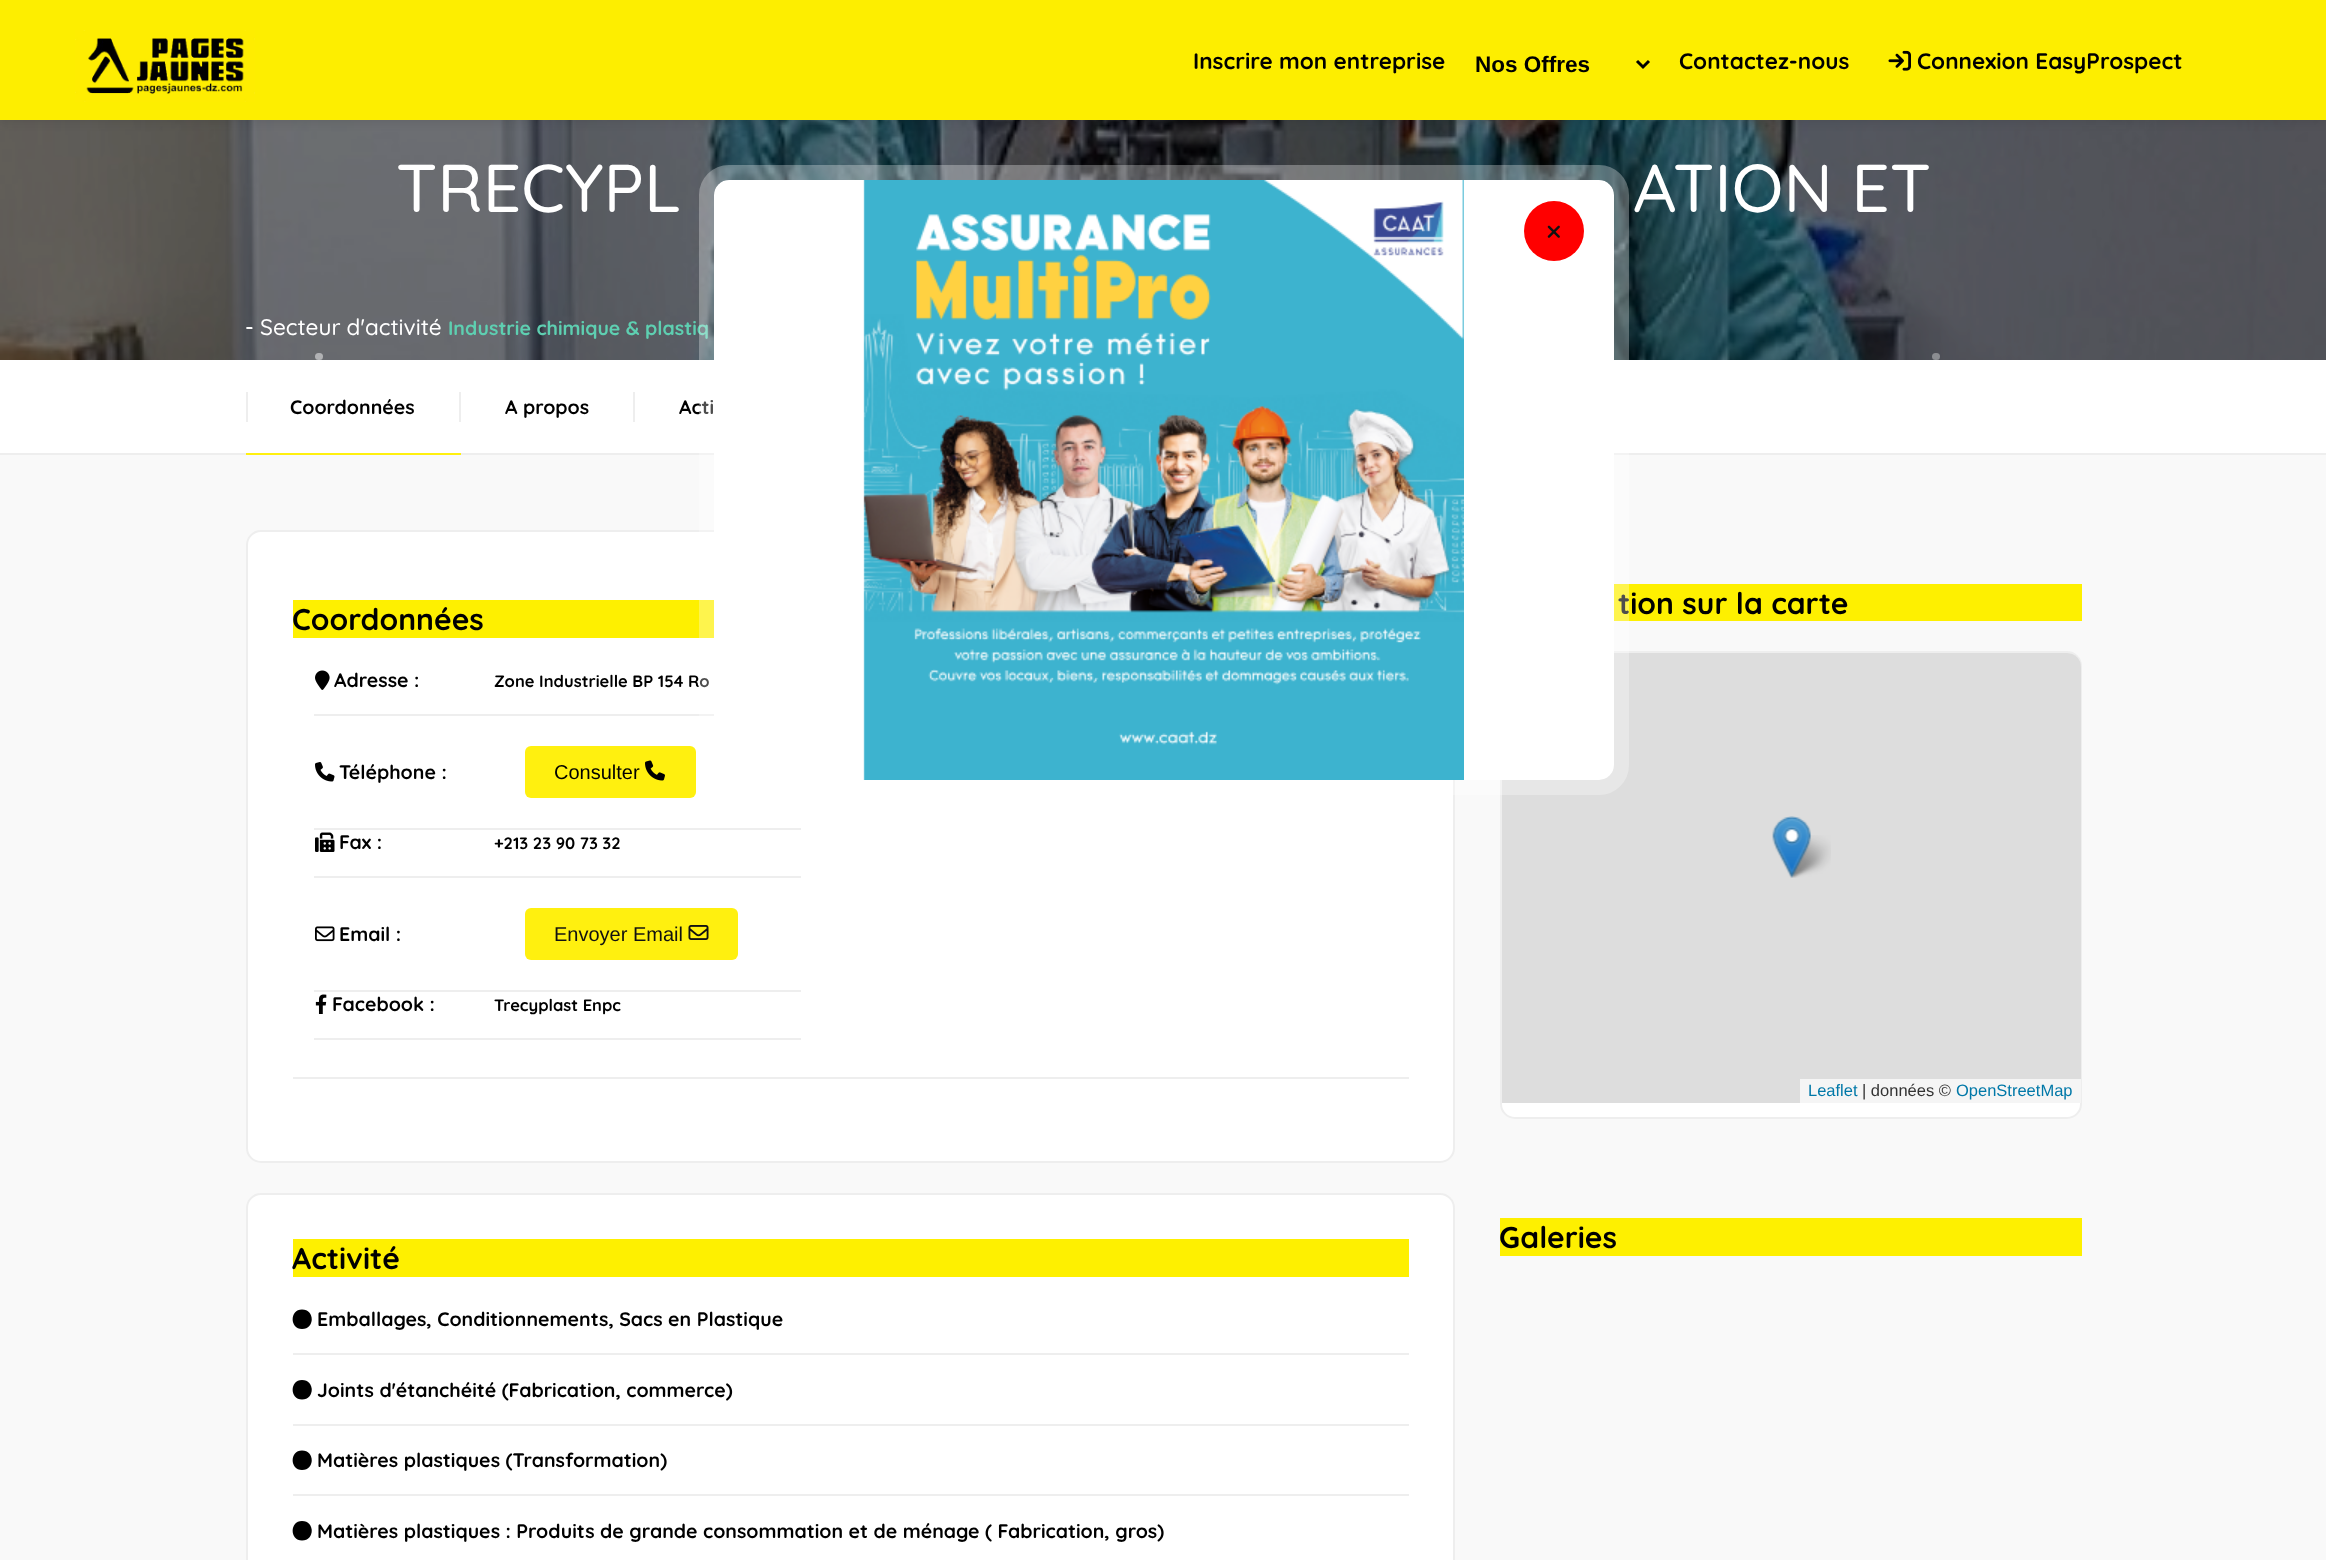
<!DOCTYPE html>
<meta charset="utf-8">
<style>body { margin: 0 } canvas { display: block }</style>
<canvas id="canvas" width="2326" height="1560"></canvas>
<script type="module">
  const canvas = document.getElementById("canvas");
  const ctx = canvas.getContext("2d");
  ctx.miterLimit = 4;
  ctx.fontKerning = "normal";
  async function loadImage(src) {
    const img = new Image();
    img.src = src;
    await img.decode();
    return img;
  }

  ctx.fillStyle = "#ffffff";
  ctx.fillRect(0, 0, 2326, 1560);
  ctx.drawImage(await loadImage("img3.png"), 0, 120, 2326, 240);
  ctx.fillStyle = "rgba(0, 0, 0, 0.12)";
  ctx.filter = "blur(6px)";
  ctx.beginPath();
  ctx.rect(0, 0, 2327, 120);
  ctx.fill();
  ctx.filter = "none";
  ctx.fillStyle = "#fdee00";
  ctx.fillRect(0, 0, 2326, 120);
  ctx.drawImage(await loadImage("img1.png"), 75, 30, 180, 72);
  ctx.font = "bold 22.5px Quicksand";
  ctx.fillStyle = "#000000";
  ctx.fillText("Inscrire mon entreprise", 1193, 69);
  ctx.beginPath();
  ctx.moveTo(1637, 61);
  ctx.lineTo(1643, 67);
  ctx.lineTo(1649, 61);
  ctx.strokeStyle = "#000000";
  ctx.lineWidth = 3;
  ctx.stroke();
  ctx.font = "bold 22.5px Liberation Sans";
  ctx.fillText("Nos Offres", 1475, 72);
  ctx.font = "bold 22.5px Quicksand";
  ctx.fillText("Contactez-nous", 1679, 69);
  ctx.drawImage(await loadImage("img2.png"), 1888, 50, 23, 21);
  ctx.fillText("Connexion EasyProspect", 1917, 69);
  ctx.font = "500 67.5px Quicksand";
  ctx.fillStyle = "#ffffff";
  ctx.fillText("TRECYPL", 396, 212);
  ctx.fillText("ATION ET", 1633, 212);
  ctx.font = "500 22.5px Quicksand";
  ctx.fillText("- Secteur d'activité", 245, 335);
  ctx.font = "bold 19.5px Quicksand";
  ctx.fillStyle = "#5ecfb1";
  ctx.fillText("Industrie chimique & plastiq", 448, 335);
  ctx.fillStyle = "#b1b2b4";
  ctx.beginPath();
  ctx.roundRect(315, 353, 8, 7, 3.5);
  ctx.fill();
  ctx.fillStyle = "#8b8d91";
  ctx.beginPath();
  ctx.roundRect(1932, 353, 8, 7, 3.5);
  ctx.fill();
  ctx.fillStyle = "#eeeeee";
  ctx.fillRect(0, 453, 2326, 2);
  ctx.fillRect(246, 392, 2, 30);
  ctx.fillStyle = "#000000";
  ctx.fillText("Coordonnées", 290, 414);
  ctx.fillStyle = "#fff00f";
  ctx.fillRect(246, 453, 215, 2);
  ctx.fillStyle = "#eeeeee";
  ctx.fillRect(459, 392, 2, 30);
  ctx.fillStyle = "#000000";
  ctx.fillText("A propos", 505, 414);
  ctx.fillStyle = "#eeeeee";
  ctx.fillRect(633, 392, 2, 30);
  ctx.fillStyle = "#000000";
  ctx.fillText("Acti", 679, 414);
  ctx.fillStyle = "#f9f9f9";
  ctx.fillRect(0, 455, 2326, 1105);
  ctx.fillStyle = "#ffffff";
  ctx.beginPath();
  ctx.roundRect(247, 531, 1207, 631, 14);
  ctx.fill();
  ctx.strokeStyle = "#eeeeee";
  ctx.lineWidth = 2;
  ctx.stroke();
  ctx.fillStyle = "#fef000";
  ctx.fillRect(293, 600, 421, 38);
  ctx.font = "bold 30px Quicksand";
  ctx.fillStyle = "#000000";
  ctx.fillText("Coordonnées", 292, 630);
  ctx.drawImage(await loadImage("img4.png"), 315, 670, 15, 20);
  ctx.font = "bold 19.5px Quicksand";
  ctx.fillText("Adresse :", 334, 687);
  ctx.fillStyle = "#eeeeee";
  ctx.fillRect(314, 714, 400, 2);
  ctx.font = "bold 16.5px Quicksand";
  ctx.fillStyle = "#000000";
  ctx.fillText("Zone Industrielle BP 154 Ro", 494, 687);
  ctx.drawImage(await loadImage("img5.png"), 315, 762, 20, 20);
  ctx.font = "bold 19.5px Quicksand";
  ctx.fillText("Téléphone :", 339, 779);
  ctx.fillStyle = "#eeeeee";
  ctx.fillRect(314, 828, 487, 2);
  ctx.fillStyle = "#fff00f";
  ctx.beginPath();
  ctx.roundRect(525, 746, 171, 52, 6);
  ctx.fill();
  ctx.font = "20px Liberation Sans";
  ctx.fillStyle = "#000000";
  ctx.fillText("Consulter", 554, 779);
  ctx.drawImage(await loadImage("img6.png"), 645, 760, 20, 21);
  ctx.drawImage(await loadImage("img7.png"), 315, 832, 20, 20);
  ctx.font = "bold 19.5px Quicksand";
  ctx.fillText("Fax :", 339, 849);
  ctx.fillStyle = "#eeeeee";
  ctx.fillRect(314, 876, 487, 2);
  ctx.font = "bold 16.5px Quicksand";
  ctx.fillStyle = "#000000";
  ctx.fillText("+213 23 90 73 32", 494, 849);
  ctx.drawImage(await loadImage("img8.png"), 315, 926, 20, 16);
  ctx.font = "bold 19.5px Quicksand";
  ctx.fillText("Email :", 339, 941);
  ctx.fillStyle = "#eeeeee";
  ctx.fillRect(314, 990, 487, 2);
  ctx.fillStyle = "#fff00f";
  ctx.beginPath();
  ctx.roundRect(525, 908, 213, 52, 6);
  ctx.fill();
  ctx.font = "20px Liberation Sans";
  ctx.fillStyle = "#111111";
  ctx.fillText("Envoyer Email", 554, 941);
  ctx.drawImage(await loadImage("img9.png"), 688, 925, 21, 15);
  ctx.drawImage(await loadImage("img10.png"), 315, 994, 12, 20);
  ctx.font = "bold 19.5px Quicksand";
  ctx.fillStyle = "#000000";
  ctx.fillText("Facebook :", 332, 1011);
  ctx.fillStyle = "#eeeeee";
  ctx.fillRect(314, 1038, 487, 2);
  ctx.font = "bold 16.5px Quicksand";
  ctx.fillStyle = "#000000";
  ctx.fillText("Trecyplast Enpc", 494, 1011);
  ctx.fillStyle = "#eeeeee";
  ctx.fillRect(293, 1077, 1116, 2);
  ctx.fillStyle = "#ffffff";
  ctx.beginPath();
  ctx.roundRect(247, 1194, 1207, 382, 14);
  ctx.fill();
  ctx.stroke();
  ctx.fillStyle = "#fef000";
  ctx.fillRect(293, 1239, 1116, 38);
  ctx.font = "bold 30px Quicksand";
  ctx.fillStyle = "#000000";
  ctx.fillText("Activité", 292, 1269);
  ctx.fillStyle = "#eeeeee";
  ctx.fillRect(293, 1353, 1116, 2);
  ctx.fillStyle = "#000000";
  ctx.beginPath();
  ctx.moveTo(302, 1329);
  ctx.bezierCurveTo(315, 1329, 315, 1309.5, 302, 1309.5);
  ctx.bezierCurveTo(289.5, 1309.5, 289.5, 1329, 302, 1329);
  ctx.closePath();
  ctx.fill();
  ctx.font = "bold 19.5px Quicksand";
  ctx.fillText("Emballages, Conditionnements, Sacs en Plastique", 317, 1326);
  ctx.fillStyle = "#eeeeee";
  ctx.fillRect(293, 1424, 1116, 2);
  ctx.fillStyle = "#000000";
  ctx.beginPath();
  ctx.moveTo(302, 1399.5);
  ctx.bezierCurveTo(315, 1399.5, 315, 1380, 302, 1380);
  ctx.bezierCurveTo(289.5, 1380, 289.5, 1399.5, 302, 1399.5);
  ctx.closePath();
  ctx.fill();
  ctx.fillText("Joints d'étanchéité (Fabrication, commerce)", 317, 1397);
  ctx.fillStyle = "#eeeeee";
  ctx.fillRect(293, 1494, 1116, 2);
  ctx.fillStyle = "#000000";
  ctx.beginPath();
  ctx.moveTo(302, 1470);
  ctx.bezierCurveTo(315, 1470, 315, 1450.5, 302, 1450.5);
  ctx.bezierCurveTo(289.5, 1450.5, 289.5, 1470, 302, 1470);
  ctx.closePath();
  ctx.fill();
  ctx.fillText("Matières plastiques (Transformation)", 317, 1467);
  ctx.beginPath();
  ctx.moveTo(302, 1540.5);
  ctx.bezierCurveTo(315, 1540.5, 315, 1521, 302, 1521);
  ctx.bezierCurveTo(289.5, 1521, 289.5, 1540.5, 302, 1540.5);
  ctx.closePath();
  ctx.fill();
  ctx.fillText("Matières plastiques : Produits de grande consommation et de ménage ( Fabrication, gros)", 317, 1538);
  ctx.fillStyle = "#fef000";
  ctx.fillRect(1500, 1218, 582, 38);
  ctx.font = "bold 30px Quicksand";
  ctx.fillStyle = "#000000";
  ctx.fillText("Galeries", 1499, 1248);
  ctx.fillStyle = "#fef000";
  ctx.fillRect(1614, 584, 468, 37);
  ctx.fillStyle = "#000000";
  ctx.fillText("tion sur la carte", 1618, 614);
  ctx.fillStyle = "#ffffff";
  ctx.beginPath();
  ctx.roundRect(1501, 652, 580, 466, 14);
  ctx.fill();
  ctx.stroke();
  ctx.fillStyle = "#dddddd";
  ctx.beginPath();
  ctx.roundRect(1502, 653, 579, 450, [14, 14, 0, 0]);
  ctx.fill();
  ctx.drawImage(await loadImage("img12.png"), 1786, 835, 45, 43);
  ctx.drawImage(await loadImage("img11.png"), 1772, 816, 39, 62);
  ctx.fillStyle = "#f5f5f5";
  ctx.fillRect(1800, 1079, 281, 24);
  ctx.font = "16.5px Liberation Sans";
  ctx.fillStyle = "#0078a8";
  ctx.fillText("Leaflet", 1808, 1096);
  ctx.fillStyle = "#333333";
  ctx.fillText("| données ©", 1862, 1096);
  ctx.fillStyle = "#0078a8";
  ctx.fillText("OpenStreetMap", 1956, 1096);
  ctx.beginPath();
  ctx.roundRect(706.5, 172.5, 915, 615, 22.5);
  ctx.strokeStyle = "rgba(255, 255, 255, 0.3)";
  ctx.lineWidth = 15;
  ctx.stroke();
  ctx.fillStyle = "#ffffff";
  ctx.beginPath();
  ctx.roundRect(714, 180, 900, 600, 15);
  ctx.fill();
  ctx.drawImage(await loadImage("img13.png"), 863, 180, 601, 600);
  ctx.fillStyle = "#ff0000";
  ctx.beginPath();
  ctx.arc(1554, 231, 30, 0, Math.PI * 2);
  ctx.fill();
  ctx.drawImage(await loadImage("img14.png"), 1547, 225, 13, 13);
</script>
